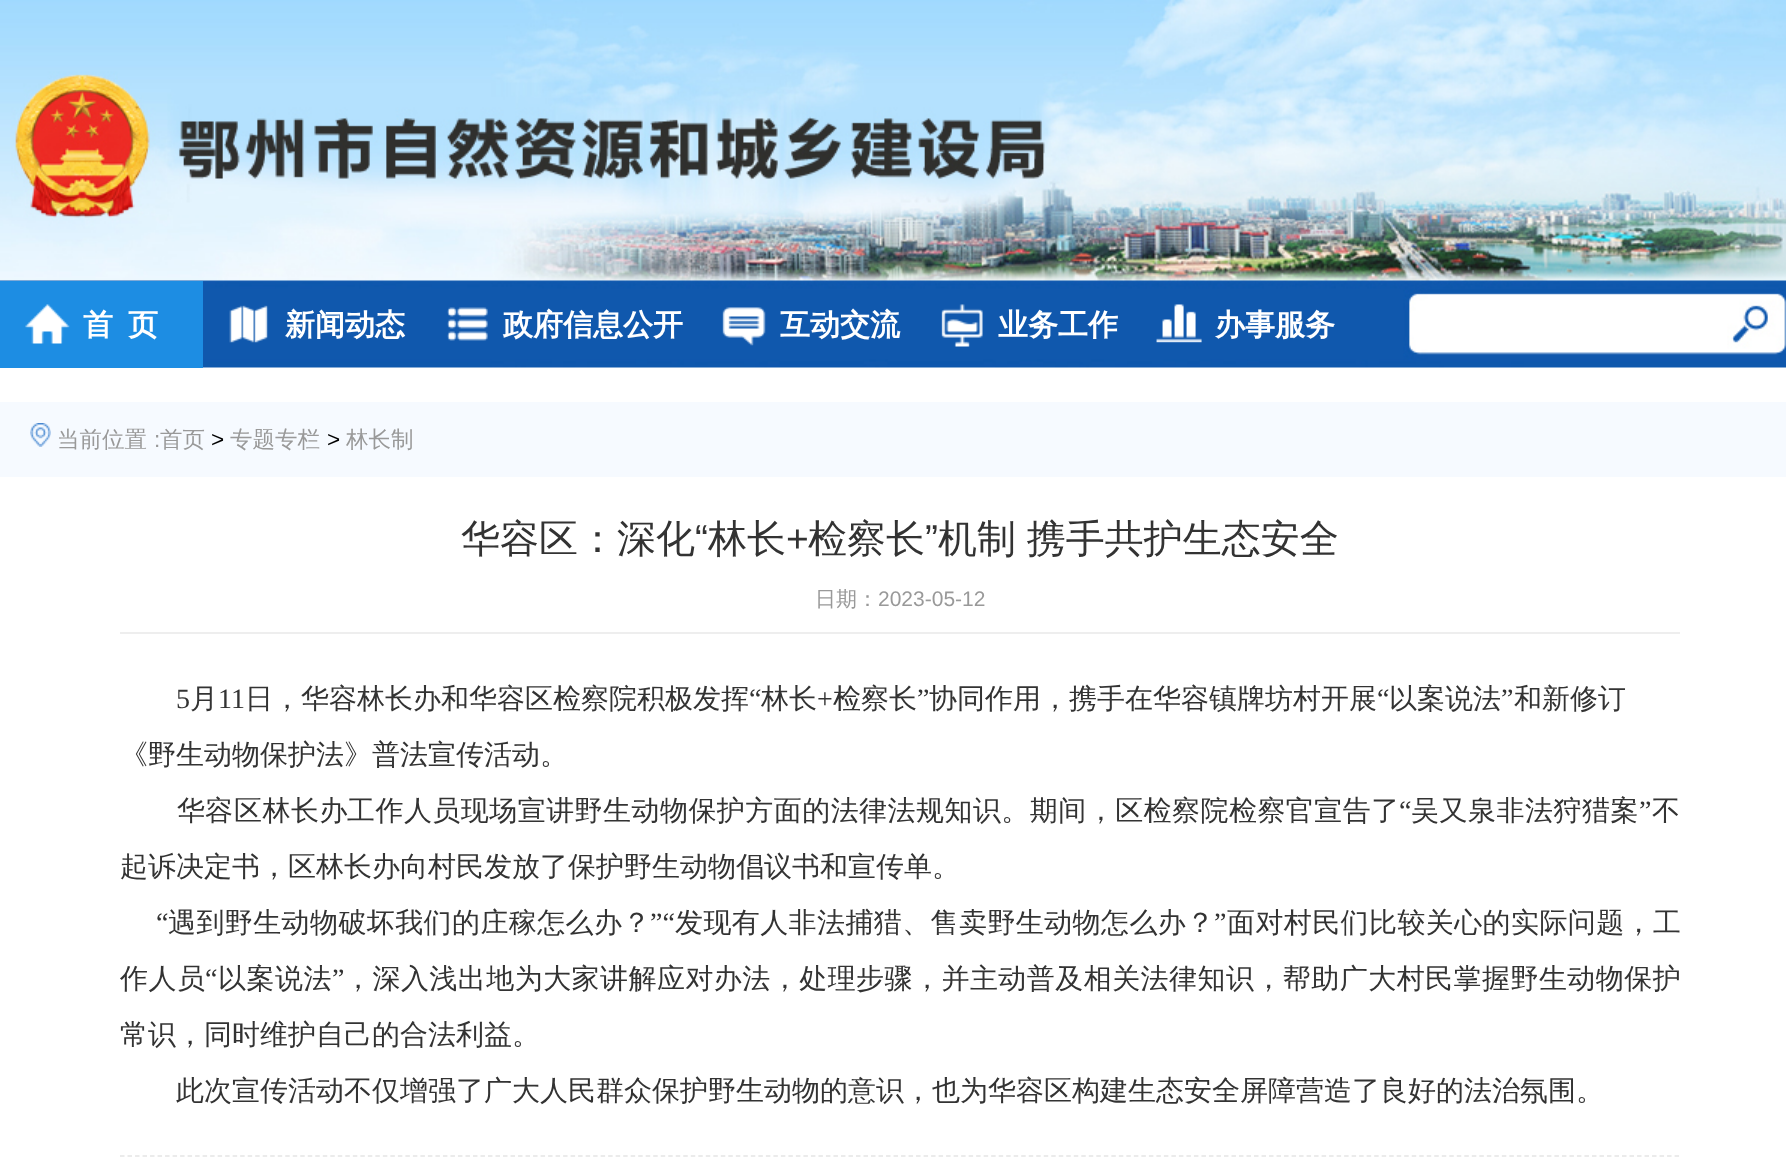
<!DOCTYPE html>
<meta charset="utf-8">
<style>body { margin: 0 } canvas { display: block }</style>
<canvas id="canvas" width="1786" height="1164"></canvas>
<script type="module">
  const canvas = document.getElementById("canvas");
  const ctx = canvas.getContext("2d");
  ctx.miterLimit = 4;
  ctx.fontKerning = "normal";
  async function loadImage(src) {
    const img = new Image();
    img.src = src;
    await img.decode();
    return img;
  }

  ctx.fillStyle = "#ffffff";
  ctx.fillRect(0, 0, 1786, 1164);
  ctx.drawImage(await loadImage("img1.png"), 0, 0, 1786, 368);
  ctx.fillStyle = "#1d8de3";
  ctx.fillRect(0, 281, 203, 87);
  ctx.drawImage(await loadImage("img2.png"), 25, 304, 45, 40);
  ctx.font = "bold 30px WenQuanYi Zen Hei";
  ctx.fillStyle = "#ffffff";
  ctx.fillText("首", 83, 335);
  ctx.fillText("页", 128, 335);
  ctx.drawImage(await loadImage("img3.png"), 229, 305, 39, 38);
  ctx.fillText("新闻动态", 285, 335);
  ctx.drawImage(await loadImage("img4.png"), 447, 307, 41, 34);
  ctx.fillText("政府信息公开", 503, 335);
  ctx.drawImage(await loadImage("img5.png"), 722, 307, 44, 39);
  ctx.fillText("互动交流", 780, 335);
  ctx.drawImage(await loadImage("img6.png"), 941, 304, 42, 43);
  ctx.fillText("业务工作", 998, 335);
  ctx.drawImage(await loadImage("img7.png"), 1156, 304, 46, 39);
  ctx.fillText("办事服务", 1215, 335);
  ctx.fillStyle = "#f6faff";
  ctx.fillRect(0, 402, 1786, 75);
  ctx.drawImage(await loadImage("img8.png"), 30, 423, 21, 24);
  ctx.font = "500 22.5px WenQuanYi Zen Hei";
  ctx.fillStyle = "#999999";
  ctx.fillText("当前位置", 57, 447);
  ctx.font = "22.5px Liberation Sans";
  ctx.fillText(":", 154, 447);
  ctx.font = "500 22.5px WenQuanYi Zen Hei";
  ctx.fillText("首页", 160, 447);
  ctx.font = "22.5px Liberation Sans";
  ctx.fillStyle = "#000000";
  ctx.fillText(">", 211, 447);
  ctx.font = "500 22.5px WenQuanYi Zen Hei";
  ctx.fillStyle = "#999999";
  ctx.fillText("专题专栏", 230, 447);
  ctx.font = "22.5px Liberation Sans";
  ctx.fillStyle = "#000000";
  ctx.fillText(">", 327, 447);
  ctx.font = "500 22.5px WenQuanYi Zen Hei";
  ctx.fillStyle = "#999999";
  ctx.fillText("林长制", 346, 447);
  ctx.fillStyle = "#eeeeee";
  ctx.fillRect(120, 632, 1560, 2);
  ctx.font = "500 39px WenQuanYi Zen Hei";
  ctx.fillStyle = "#333333";
  ctx.fillText("华容区：深化", 461, 552);
  ctx.font = "39px Liberation Sans";
  ctx.fillText("“", 695, 552);
  ctx.font = "500 39px WenQuanYi Zen Hei";
  ctx.fillText("林长", 708, 552);
  ctx.font = "39px Liberation Sans";
  ctx.fillText("+", 786, 552);
  ctx.font = "500 39px WenQuanYi Zen Hei";
  ctx.fillText("检察长", 808, 552);
  ctx.font = "39px Liberation Sans";
  ctx.fillText("”", 925, 552);
  ctx.wordSpacing = "-1px";
  ctx.font = "500 39px WenQuanYi Zen Hei";
  ctx.fillText("机制 携手共护生态安全", 938, 552);
  ctx.wordSpacing = "0px";
  ctx.font = "500 21px WenQuanYi Zen Hei";
  ctx.fillStyle = "#999999";
  ctx.fillText("日期：", 815, 606);
  ctx.font = "21px Liberation Sans";
  ctx.fillText("2023-05-12", 878, 606);
  ctx.font = "28px Liberation Serif";
  ctx.fillStyle = "#333333";
  ctx.fillText("5", 176, 708);
  ctx.font = "500 28px WenQuanYi Zen Hei";
  ctx.fillText("月", 190, 708);
  ctx.font = "28px Liberation Serif";
  ctx.fillText("11", 218, 708);
  ctx.font = "500 28px WenQuanYi Zen Hei";
  ctx.fillText("日，华容林长办和华容区检察院积极发挥", 245, 708);
  ctx.font = "28px Liberation Serif";
  ctx.fillText("“", 749, 708);
  ctx.font = "500 28px WenQuanYi Zen Hei";
  ctx.fillText("林长", 761, 708);
  ctx.font = "28px Liberation Serif";
  ctx.fillText("+", 817, 708);
  ctx.font = "500 28px WenQuanYi Zen Hei";
  ctx.fillText("检察长", 833, 708);
  ctx.font = "28px Liberation Serif";
  ctx.fillText("”", 917, 708);
  ctx.font = "500 28px WenQuanYi Zen Hei";
  ctx.fillText("协同作用，携手在华容镇牌坊村开展", 929, 708);
  ctx.font = "28px Liberation Serif";
  ctx.fillText("“", 1377, 708);
  ctx.font = "500 28px WenQuanYi Zen Hei";
  ctx.fillText("以案说法", 1389, 708);
  ctx.font = "28px Liberation Serif";
  ctx.fillText("”", 1501, 708);
  ctx.font = "500 28px WenQuanYi Zen Hei";
  ctx.fillText("和新修订", 1514, 708);
  ctx.fillText("《野生动物保护法》普法宣传活动。", 120, 764);
  ctx.fillText("华容", 177, 820);
  ctx.letterSpacing = "0.5px";
  ctx.fillText("区林长办", 234, 820);
  ctx.letterSpacing = "0.45px";
  ctx.fillText("工作人员现场宣讲野生动物保护方面的法律法规知识。期间，区检察院检察官宣告了", 347, 820);
  ctx.letterSpacing = "0px";
  ctx.font = "28px Liberation Serif";
  ctx.fillText("“", 1399, 820);
  ctx.letterSpacing = "0.5px";
  ctx.font = "500 28px WenQuanYi Zen Hei";
  ctx.fillText("吴又泉非法狩猎案", 1411, 820);
  ctx.letterSpacing = "0px";
  ctx.font = "28px Liberation Serif";
  ctx.fillText("”", 1639, 820);
  ctx.font = "500 28px WenQuanYi Zen Hei";
  ctx.fillText("不", 1652, 820);
  ctx.fillText("起诉决定书，区林长办向村民发放了保护野生动物倡议书和宣传单。", 120, 876);
  ctx.font = "28px Liberation Serif";
  ctx.fillText("“", 156, 932);
  ctx.letterSpacing = "0.4px";
  ctx.font = "500 28px WenQuanYi Zen Hei";
  ctx.fillText("遇到野生动物破坏我们的庄稼怎么办？", 168, 932);
  ctx.letterSpacing = "0px";
  ctx.font = "28px Liberation Serif";
  ctx.fillText("”“", 650, 932);
  ctx.letterSpacing = "0.4px";
  ctx.font = "500 28px WenQuanYi Zen Hei";
  ctx.fillText("发现有人非法捕猎、售卖野生动物怎么办？", 675, 932);
  ctx.letterSpacing = "0px";
  ctx.font = "28px Liberation Serif";
  ctx.fillText("”", 1214, 932);
  ctx.letterSpacing = "0.4px";
  ctx.font = "500 28px WenQuanYi Zen Hei";
  ctx.fillText("面对村民们比较关心的实际问题，工", 1227, 932);
  ctx.letterSpacing = "0.5px";
  ctx.fillText("作人员", 120, 988);
  ctx.letterSpacing = "0px";
  ctx.font = "28px Liberation Serif";
  ctx.fillText("“", 205, 988);
  ctx.letterSpacing = "0.5px";
  ctx.font = "500 28px WenQuanYi Zen Hei";
  ctx.fillText("以案说法", 218, 988);
  ctx.letterSpacing = "0px";
  ctx.font = "28px Liberation Serif";
  ctx.fillText("”", 332, 988);
  ctx.letterSpacing = "0.45px";
  ctx.font = "500 28px WenQuanYi Zen Hei";
  ctx.fillText("，深入浅出地为大家讲解应对办法，处理步骤，并主动普及相关法律知识，帮助广大村民掌握野生动物保护", 344, 988);
  ctx.letterSpacing = "0px";
  ctx.fillText("常识，同时维护自己的合法利益。", 120, 1044);
  ctx.fillText("此次宣传活动不仅增强了广大人民群众保护野生动物的意识，也为华容区构建生态安全屏障营造了良好的法治氛围。", 176, 1100);
  ctx.beginPath();
  ctx.moveTo(120, 1156);
  ctx.lineTo(1680, 1156);
  ctx.strokeStyle = "#e5e5e5";
  ctx.lineWidth = 1.5;
  ctx.setLineDash([4.5, 3.01]);
  ctx.stroke();
</script>
